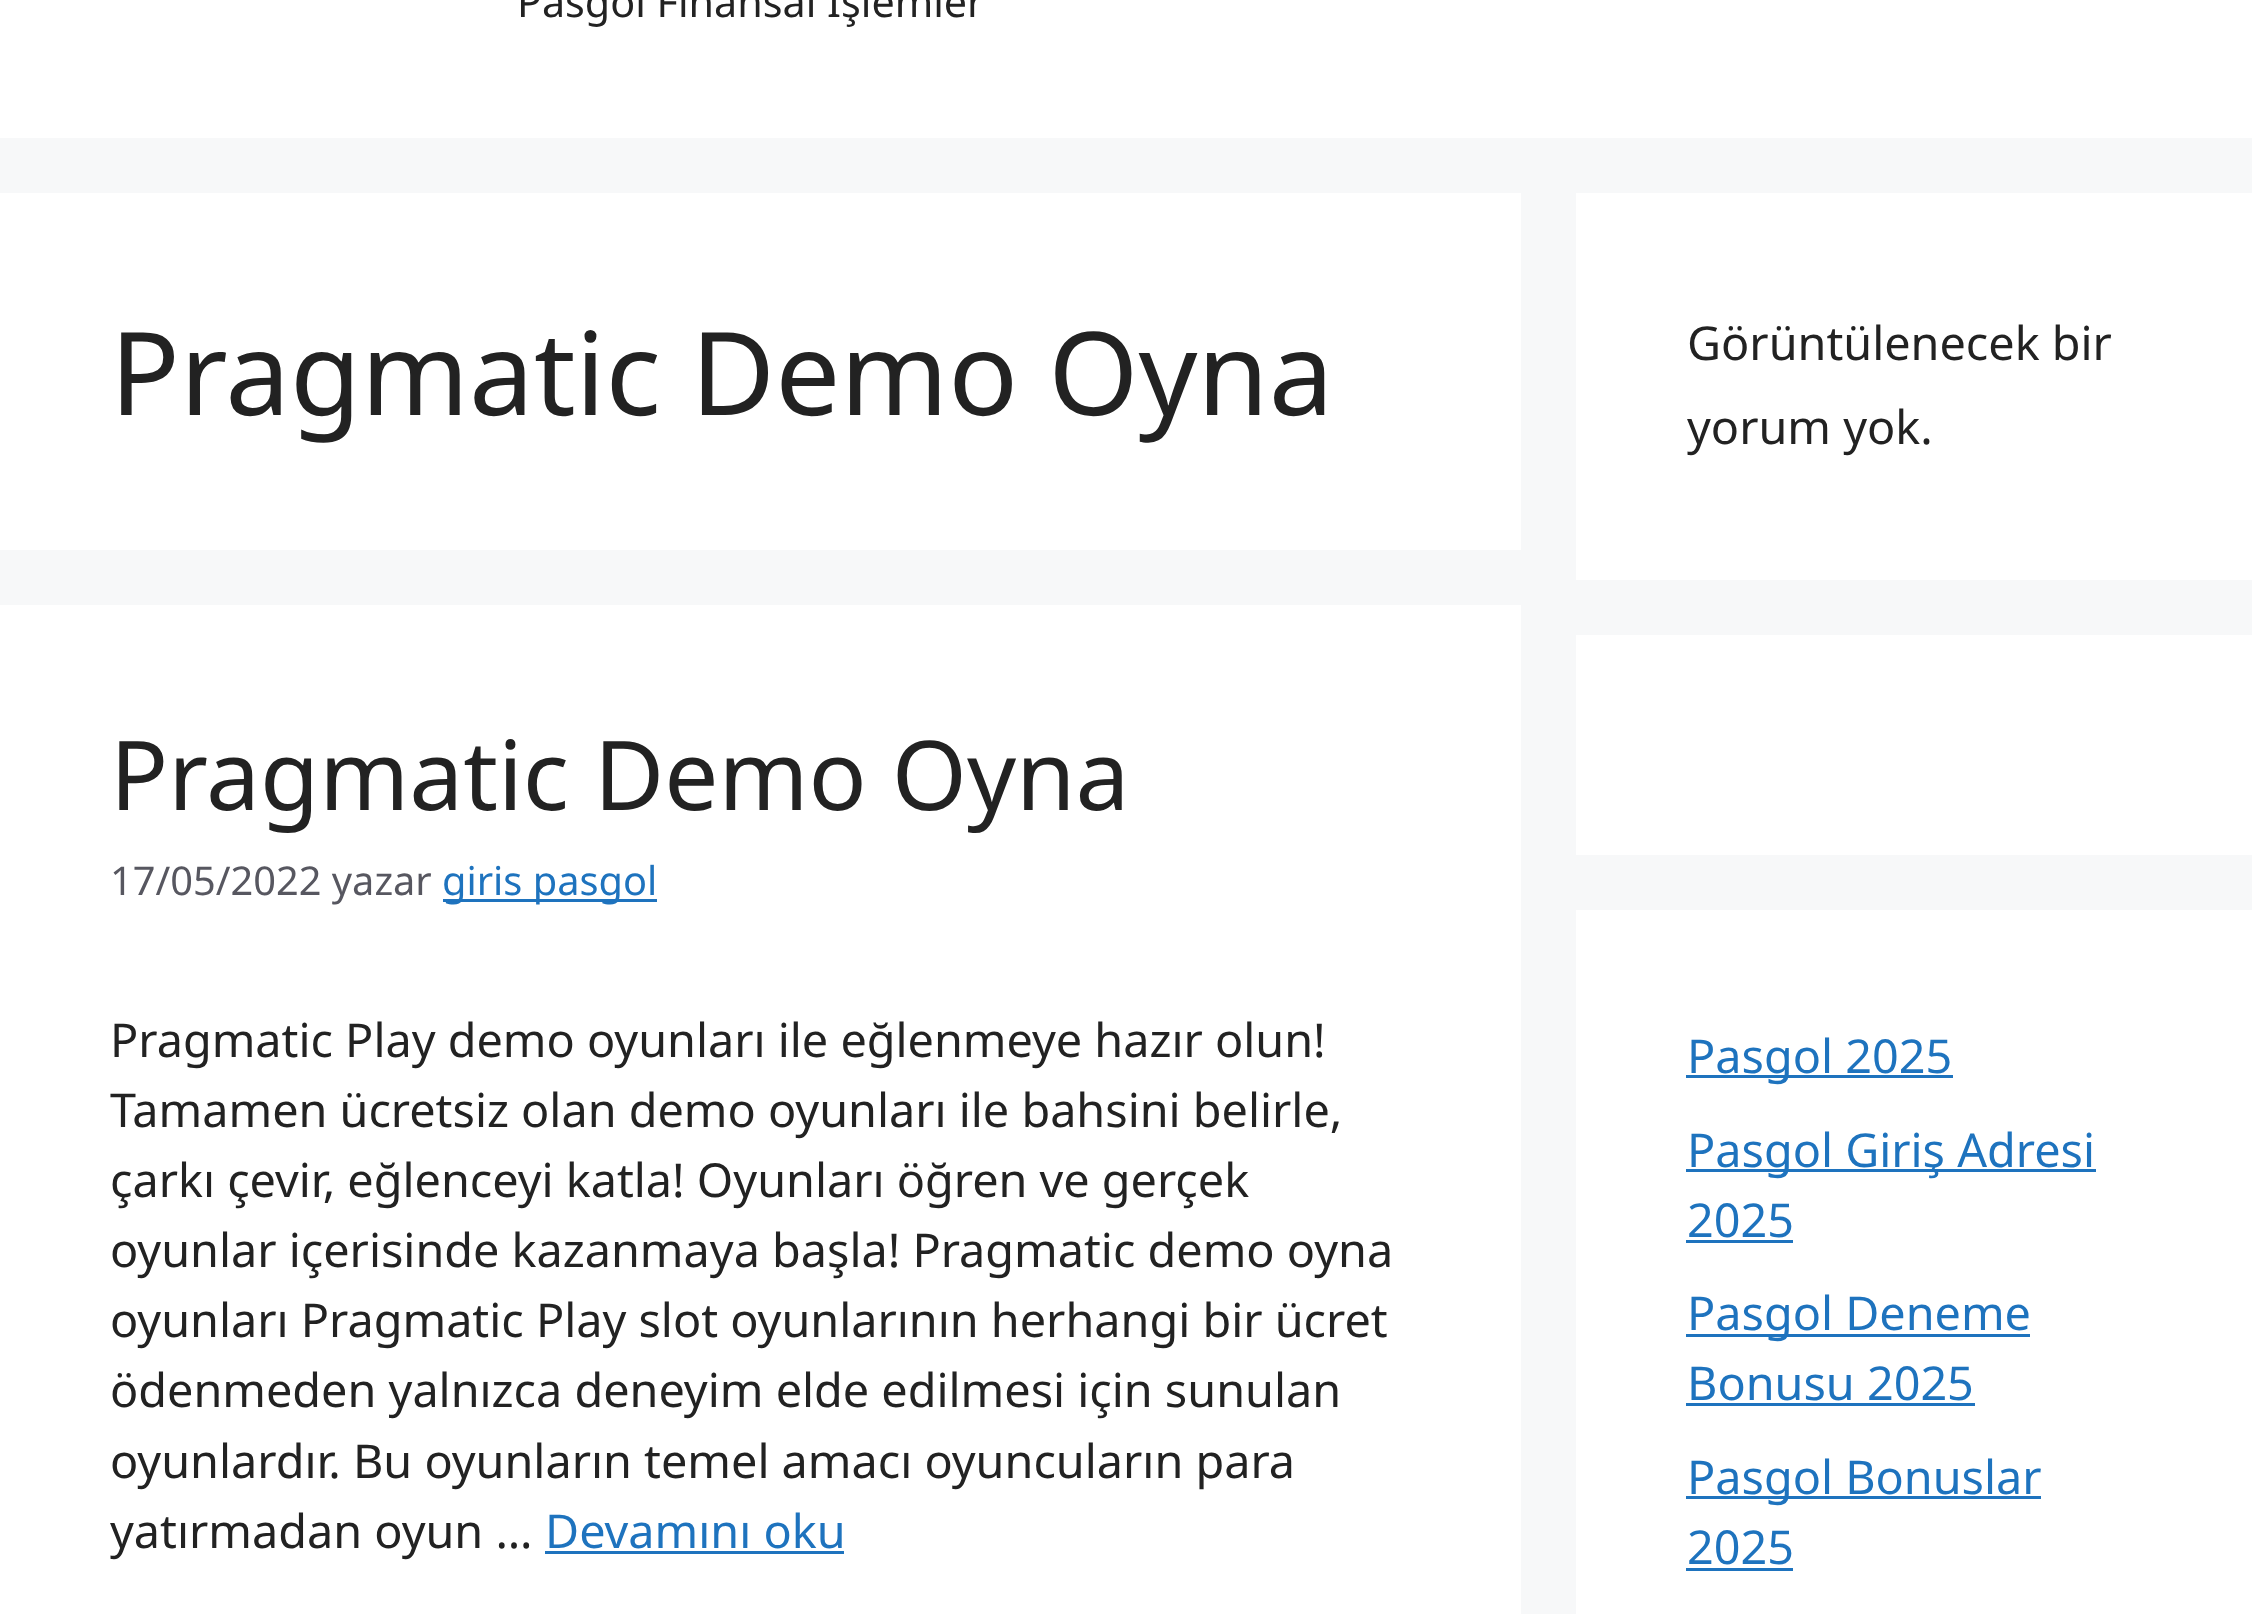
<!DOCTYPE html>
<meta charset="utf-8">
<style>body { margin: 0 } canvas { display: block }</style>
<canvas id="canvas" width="2252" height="1614"></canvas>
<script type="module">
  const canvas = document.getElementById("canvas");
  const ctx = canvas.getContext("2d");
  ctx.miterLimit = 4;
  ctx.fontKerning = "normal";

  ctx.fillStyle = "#f7f8f9";
  ctx.fillRect(0, 0, 2252, 1614);
  ctx.fillStyle = "#ffffff";
  ctx.fillRect(0, 0, 2252, 138);
  ctx.font = "41.25px Noto Sans";
  ctx.fillStyle = "#222222";
  ctx.fillText("Pasgol Finansal İşlemler", 517, 17);
  ctx.fillStyle = "#ffffff";
  ctx.fillRect(0, 193, 1521, 357);
  ctx.font = "115.5px Noto Sans";
  ctx.fillStyle = "#222222";
  ctx.fillText("Pragmatic Demo Oyna", 110, 415);
  ctx.fillStyle = "#ffffff";
  ctx.fillRect(0, 605, 1521, 1009);
  ctx.font = "96.25px Noto Sans";
  ctx.fillStyle = "#222222";
  ctx.fillText("Pragmatic Demo Oyna", 110, 810);
  ctx.font = "39.75px Noto Sans";
  ctx.fillStyle = "#575760";
  ctx.fillText("17/05/2022 yazar", 110, 895);
  ctx.fillStyle = "#1e73be";
  ctx.fillRect(443, 899, 214, 3);
  ctx.fillText("giris pasgol", 442, 895);
  ctx.font = "46.75px Noto Sans";
  ctx.fillStyle = "#222222";
  ctx.fillText("Pragmatic Play demo oyunları ile eğlenmeye hazır olun!", 110, 1057);
  ctx.fillText("Tamamen ücretsiz olan demo oyunları ile bahsini belirle,", 110, 1127);
  ctx.fillText("çarkı çevir, eğlenceyi katla! Oyunları öğren ve gerçek", 110, 1197);
  ctx.fillText("oyunlar içerisinde kazanmaya başla! Pragmatic demo oyna", 110, 1267);
  ctx.fillText("oyunları Pragmatic Play slot oyunlarının herhangi bir ücret", 110, 1337);
  ctx.fillText("ödenmeden yalnızca deneyim elde edilmesi için sunulan", 110, 1407);
  ctx.fillText("oyunlardır. Bu oyunların temel amacı oyuncuların para", 110, 1478);
  ctx.fillText("yatırmadan oyun …", 110, 1548);
  ctx.fillStyle = "#1e73be";
  ctx.fillText("Devamını oku", 545, 1548);
  ctx.fillRect(545, 1551, 299, 3);
  ctx.fillStyle = "#ffffff";
  ctx.fillRect(1576, 193, 676, 387);
  ctx.fillStyle = "#222222";
  ctx.fillText("Görüntülenecek bir", 1687, 360);
  ctx.fillText("yorum yok.", 1687, 444);
  ctx.fillStyle = "#ffffff";
  ctx.fillRect(1576, 635, 676, 220);
  ctx.fillRect(1576, 910, 676, 704);
  ctx.fillStyle = "#1e73be";
  ctx.fillRect(1686, 1075, 267, 3);
  ctx.fillText("Pasgol 2025", 1687, 1073);
  ctx.fillRect(1686, 1169, 410, 3);
  ctx.fillText("Pasgol Giriş Adresi", 1687, 1167);
  ctx.fillText("2025", 1687, 1237);
  ctx.fillRect(1686, 1240, 107, 3);
  ctx.fillRect(1686, 1334, 344, 3);
  ctx.fillText("Pasgol Deneme", 1687, 1330);
  ctx.fillText("Bonusu 2025", 1687, 1400);
  ctx.fillRect(1686, 1403, 289, 3);
  ctx.fillRect(1686, 1496, 355, 3);
  ctx.fillText("Pasgol Bonuslar", 1687, 1494);
  ctx.fillText("2025", 1687, 1564);
  ctx.fillRect(1686, 1568, 107, 3);
</script>
